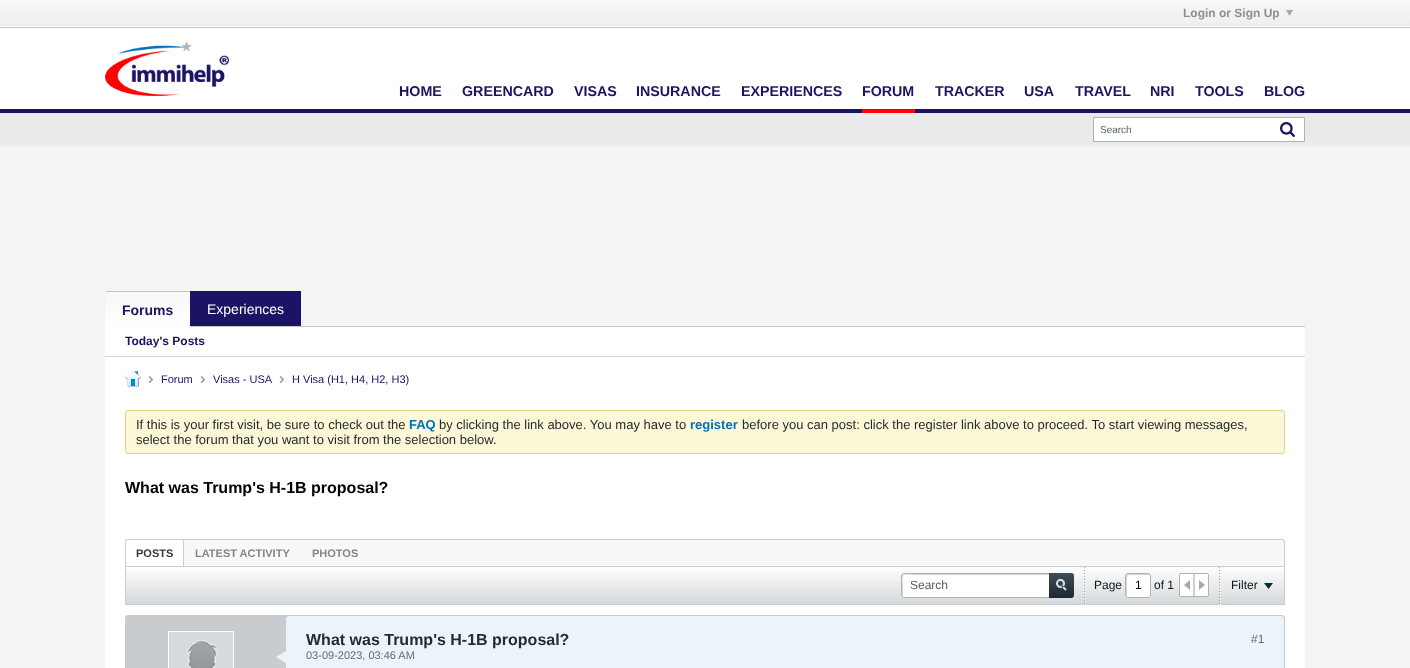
<!DOCTYPE html>
<meta charset="utf-8">
<style>body { margin: 0 } canvas { display: block }</style>
<canvas id="canvas" width="1410" height="668"></canvas>
<script type="module">
  const canvas = document.getElementById("canvas");
  const ctx = canvas.getContext("2d");
  ctx.miterLimit = 4;
  ctx.fontKerning = "normal";
  async function loadImage(src) {
    const img = new Image();
    img.src = src;
    await img.decode();
    return img;
  }
  let gradient;

  ctx.fillStyle = "#f4f4f4";
  ctx.fillRect(0, 0, 1410, 668);
  gradient = ctx.createLinearGradient(705, 0, 705, 28);
  gradient.addColorStop(0, "#f8f8f8");
  gradient.addColorStop(1, "#efedee");
  ctx.fillStyle = gradient;
  ctx.fillRect(0, 0, 1410, 26);
  ctx.font = "bold 12px Liberation Sans";
  ctx.fillStyle = "#8e8e8e";
  ctx.fillText("Login or Sign Up", 1183, 17);
  ctx.drawImage(await loadImage("img1.png"), 1286, 10, 7, 6);
  ctx.fillStyle = "#fafafa";
  ctx.fillRect(0, 26, 1410, 1);
  ctx.fillStyle = "#c7c8c9";
  ctx.fillRect(0, 27, 1410, 1);
  ctx.fillStyle = "#ffffff";
  ctx.fillRect(0, 28, 1410, 81);
  ctx.fillStyle = "#1b1464";
  ctx.fillRect(0, 109, 1410, 4);
  ctx.drawImage(await loadImage("img2.png"), 105, 41, 124, 55);
  ctx.font = "bold 14.25px Liberation Sans";
  ctx.fillText("HOME", 399, 96);
  ctx.fillText("GREENCARD", 462, 96);
  ctx.fillText("VISAS", 574, 96);
  ctx.fillText("INSURANCE", 636, 96);
  ctx.fillText("EXPERIENCES", 741, 96);
  ctx.fillStyle = "#ff0000";
  ctx.fillRect(862, 109, 53, 4);
  ctx.fillStyle = "#1b1464";
  ctx.fillText("FORUM", 862, 96);
  ctx.fillText("TRACKER", 935, 96);
  ctx.fillText("USA", 1024, 96);
  ctx.fillText("TRAVEL", 1075, 96);
  ctx.fillText("NRI", 1150, 96);
  ctx.fillText("TOOLS", 1195, 96);
  ctx.fillText("BLOG", 1264, 96);
  ctx.fillStyle = "#eaeaea";
  ctx.fillRect(0, 113, 1410, 33);
  ctx.fillStyle = "#ffffff";
  ctx.beginPath();
  ctx.rect(1093.5, 117.5, 211, 24);
  ctx.fill();
  ctx.strokeStyle = "#aeb3b6";
  ctx.stroke();
  ctx.font = "10px Liberation Sans";
  ctx.fillStyle = "#556065";
  ctx.fillText("Search", 1100, 133);
  ctx.drawImage(await loadImage("img3.png"), 1280, 122, 15, 15);
  ctx.fillStyle = "#c4c7c8";
  ctx.fillRect(190, 326, 1115, 1);
  gradient = ctx.createLinearGradient(148, 257, 148, 292);
  gradient.addColorStop(0, "#f7f7f7");
  gradient.addColorStop(1, "#ffffff");
  ctx.fillStyle = gradient;
  ctx.beginPath();
  ctx.roundRect(105, 291, 85, 1, [1, 1, 0, 0]);
  ctx.fill();
  gradient = ctx.createLinearGradient(148, 292, 148, 327);
  gradient.addColorStop(0, "#f7f7f7");
  gradient.addColorStop(1, "#ffffff");
  ctx.fillStyle = gradient;
  ctx.fillRect(105, 292, 85, 35);
  ctx.fillStyle = "#c4c7c8";
  ctx.fillRect(106, 291, 84, 1);
  ctx.font = "bold 14px Liberation Sans";
  ctx.fillStyle = "#1b1464";
  ctx.fillText("Forums", 122, 315);
  ctx.fillRect(190, 291, 111, 35);
  ctx.font = "14px Liberation Sans";
  ctx.fillStyle = "#ffffff";
  ctx.fillText("Experiences", 207, 314);
  ctx.fillRect(105, 327, 1200, 29);
  ctx.fillStyle = "#d3d5d6";
  ctx.fillRect(105, 356, 1200, 1);
  ctx.font = "bold 12px Liberation Sans";
  ctx.fillStyle = "#1b1464";
  ctx.fillText("Today's Posts", 125, 345);
  ctx.fillStyle = "#ffffff";
  ctx.fillRect(105, 357, 1200, 311);
  ctx.drawImage(await loadImage("img4.png"), 125, 371, 16, 16);
  ctx.drawImage(await loadImage("img5.png"), 148, 376, 5, 7);
  ctx.font = "11px Liberation Sans";
  ctx.fillStyle = "#1b1464";
  ctx.fillText("Forum", 161, 383);
  ctx.drawImage(await loadImage("img5.png"), 200, 376, 5, 7);
  ctx.fillText("Visas - USA", 213, 383);
  ctx.drawImage(await loadImage("img5.png"), 279, 376, 5, 7);
  ctx.fillText("H Visa (H1, H4, H2, H3)", 292, 383);
  ctx.fillStyle = "#fcf7d7";
  ctx.beginPath();
  ctx.roundRect(125.5, 410.5, 1159, 43, 2.5);
  ctx.fill();
  ctx.strokeStyle = "#e1d47e";
  ctx.stroke();
  ctx.font = "13px Liberation Sans";
  ctx.fillStyle = "#252c2f";
  ctx.fillText("If this is your first visit, be sure to check out the", 136, 429);
  ctx.font = "bold 13px Liberation Sans";
  ctx.fillStyle = "#0071bc";
  ctx.fillText("FAQ", 409, 429);
  ctx.font = "13px Liberation Sans";
  ctx.fillStyle = "#252c2f";
  ctx.fillText("by clicking the link above. You may have to", 439, 429);
  ctx.font = "bold 13px Liberation Sans";
  ctx.fillStyle = "#0071bc";
  ctx.fillText("register", 690, 429);
  ctx.font = "13px Liberation Sans";
  ctx.fillStyle = "#252c2f";
  ctx.fillText("before you can post: click the register link above to proceed. To start viewing messages,", 742, 429);
  ctx.fillText("select the forum that you want to visit from the selection below.", 136, 444);
  ctx.font = "bold 16px Liberation Sans";
  ctx.fillStyle = "#000000";
  ctx.fillText("What was Trump's H-1B proposal?", 125, 493);
  ctx.fillStyle = "#f8f8f8";
  ctx.beginPath();
  ctx.roundRect(125, 539, 1160, 27, [3, 3, 0, 0]);
  ctx.fill();
  ctx.fillStyle = "#c9ced2";
  ctx.beginPath();
  ctx.moveTo(128, 539);
  ctx.lineTo(1282, 539);
  ctx.bezierCurveTo(1284, 539, 1285, 540, 1285, 542);
  ctx.lineTo(1285, 566);
  ctx.lineTo(125, 566);
  ctx.lineTo(125, 542);
  ctx.bezierCurveTo(125, 540, 126, 539, 128, 539);
  ctx.closePath();
  ctx.moveTo(128, 540);
  ctx.lineTo(1282, 540);
  ctx.bezierCurveTo(1283, 540, 1284, 541, 1284, 542);
  ctx.lineTo(1284, 566);
  ctx.lineTo(126, 566);
  ctx.lineTo(126, 542);
  ctx.bezierCurveTo(126, 541, 127, 540, 128, 540);
  ctx.closePath();
  ctx.fill("evenodd");
  ctx.fillStyle = "#f8f8f8";
  ctx.beginPath();
  ctx.roundRect(126, 540, 243, 26, [3, 3, 0, 0]);
  ctx.fill();
  ctx.fillStyle = "#ffffff";
  ctx.beginPath();
  ctx.roundRect(125, 539, 59, 27, [3, 3, 0, 0]);
  ctx.fill();
  ctx.fillStyle = "#c9ced2";
  ctx.beginPath();
  ctx.moveTo(128, 539);
  ctx.lineTo(181, 539);
  ctx.bezierCurveTo(183, 539, 184, 540, 184, 542);
  ctx.lineTo(184, 566);
  ctx.lineTo(125, 566);
  ctx.lineTo(125, 542);
  ctx.bezierCurveTo(125, 540, 126, 539, 128, 539);
  ctx.closePath();
  ctx.moveTo(128, 540);
  ctx.lineTo(181, 540);
  ctx.bezierCurveTo(182, 540, 183, 541, 183, 542);
  ctx.lineTo(183, 566);
  ctx.lineTo(126, 566);
  ctx.lineTo(126, 542);
  ctx.bezierCurveTo(126, 541, 127, 540, 128, 540);
  ctx.closePath();
  ctx.fill("evenodd");
  ctx.font = "bold 11px Liberation Sans";
  ctx.fillStyle = "#343a3d";
  ctx.fillText("POSTS", 136, 557);
  ctx.fillStyle = "#838789";
  ctx.fillText("LATEST ACTIVITY", 195, 557);
  ctx.fillText("PHOTOS", 312, 557);
  gradient = ctx.createLinearGradient(705, 567, 705, 604);
  gradient.addColorStop(0, "#fefeff");
  gradient.addColorStop(1, "#d5d8da");
  ctx.fillStyle = gradient;
  ctx.fillRect(126, 568, 1158, 36);
  ctx.strokeStyle = "#c9ced2";
  ctx.strokeRect(125.5, 566.5, 1159, 38);
  ctx.fillStyle = "#ffffff";
  ctx.beginPath();
  ctx.roundRect(901, 573, 173, 25, 3);
  ctx.fill();
  ctx.fillStyle = "#d5d5d5";
  ctx.beginPath();
  ctx.moveTo(905, 575);
  ctx.lineTo(1073, 575);
  ctx.lineTo(1071, 574);
  ctx.lineTo(988, 574);
  ctx.bezierCurveTo(980, 574, 904, 573, 903, 575);
  ctx.lineTo(902, 575);
  ctx.lineTo(902, 596);
  ctx.lineTo(903, 597);
  ctx.lineTo(903, 586);
  ctx.bezierCurveTo(903, 585, 901, 575, 905, 575);
  ctx.closePath();
  ctx.fill();
  ctx.beginPath();
  ctx.roundRect(901.5, 573.5, 172, 24, 2.5);
  ctx.strokeStyle = "#aeb3b6";
  ctx.stroke();
  ctx.font = "12px Liberation Sans";
  ctx.fillStyle = "#556065";
  ctx.fillText("Search", 910, 589);
  gradient = ctx.createLinearGradient(1062, 573, 1062, 598);
  gradient.addColorStop(0, "#404d5a");
  gradient.addColorStop(1, "#1c2931");
  ctx.fillStyle = gradient;
  ctx.beginPath();
  ctx.roundRect(1049, 573, 25, 25, [0, 3, 3, 0]);
  ctx.fill();
  ctx.drawImage(await loadImage("img6.png"), 1056, 579, 11, 12);
  ctx.drawImage(await loadImage("img7.png"), 1084, 567, 1, 37);
  ctx.drawImage(await loadImage("img8.png"), 1085, 571, 1, 34);
  ctx.fillStyle = "#09161b";
  ctx.fillText("Page", 1094, 589);
  ctx.fillStyle = "#ffffff";
  ctx.beginPath();
  ctx.roundRect(1125, 573, 26, 25, 3);
  ctx.fill();
  ctx.fillStyle = "#d5d5d5";
  ctx.beginPath();
  ctx.moveTo(1129, 575);
  ctx.lineTo(1149, 575);
  ctx.lineTo(1150, 575);
  ctx.bezierCurveTo(1149.5, 574.5, 1149, 574, 1148, 574);
  ctx.lineTo(1128, 574);
  ctx.bezierCurveTo(1127, 574, 1126, 575, 1126, 576);
  ctx.lineTo(1126, 595);
  ctx.bezierCurveTo(1126, 596, 1126.5, 596.5, 1127, 597);
  ctx.lineTo(1127, 580);
  ctx.bezierCurveTo(1127, 579, 1126.5, 575, 1129, 575);
  ctx.closePath();
  ctx.fill();
  ctx.beginPath();
  ctx.roundRect(1125.5, 573.5, 25, 24, 2.5);
  ctx.stroke();
  ctx.fillStyle = "#000000";
  ctx.fillText("1", 1135, 589);
  ctx.fillStyle = "#09161b";
  ctx.fillText("of 1", 1154, 589);
  ctx.fillStyle = "#ffffff";
  ctx.beginPath();
  ctx.roundRect(1179.5, 573.5, 29, 23, 1.5);
  ctx.fill();
  ctx.stroke();
  ctx.fillStyle = "#cdd1d4";
  ctx.fillRect(1193, 574, 2, 22);
  ctx.drawImage(await loadImage("img9.png"), 1184, 580, 6, 10);
  ctx.drawImage(await loadImage("img10.png"), 1199, 580, 6, 10);
  ctx.drawImage(await loadImage("img7.png"), 1219, 567, 1, 37);
  ctx.drawImage(await loadImage("img8.png"), 1220, 571, 1, 34);
  ctx.fillStyle = "#09161b";
  ctx.fillText("Filter", 1231, 589);
  ctx.drawImage(await loadImage("img11.png"), 1264, 583, 9, 6);
  ctx.fillStyle = "#c8ccce";
  ctx.beginPath();
  ctx.roundRect(125.5, 615.5, 1159, 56, 2.5);
  ctx.fill();
  ctx.strokeStyle = "#c8ccce";
  ctx.stroke();
  ctx.strokeStyle = "#ffffff";
  ctx.strokeRect(168.5, 631.5, 65, 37);
  ctx.drawImage(await loadImage("img12.png"), 169, 632, 64, 36);
  ctx.fillStyle = "#ebf4f9";
  ctx.beginPath();
  ctx.roundRect(286, 616, 998, 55, 3);
  ctx.fill();
  ctx.beginPath();
  ctx.moveTo(286, 651);
  ctx.lineTo(286, 663);
  ctx.lineTo(276, 657);
  ctx.closePath();
  ctx.fill();
  ctx.font = "bold 16px Liberation Sans";
  ctx.fillStyle = "#252c2f";
  ctx.fillText("What was Trump's H-1B proposal?", 306, 645);
  ctx.font = "11px Liberation Sans";
  ctx.fillStyle = "#656a6d";
  ctx.fillText("03-09-2023, 03:46 AM", 306, 659);
  ctx.font = "12px Liberation Sans";
  ctx.fillText("#1", 1251, 643);
</script>
